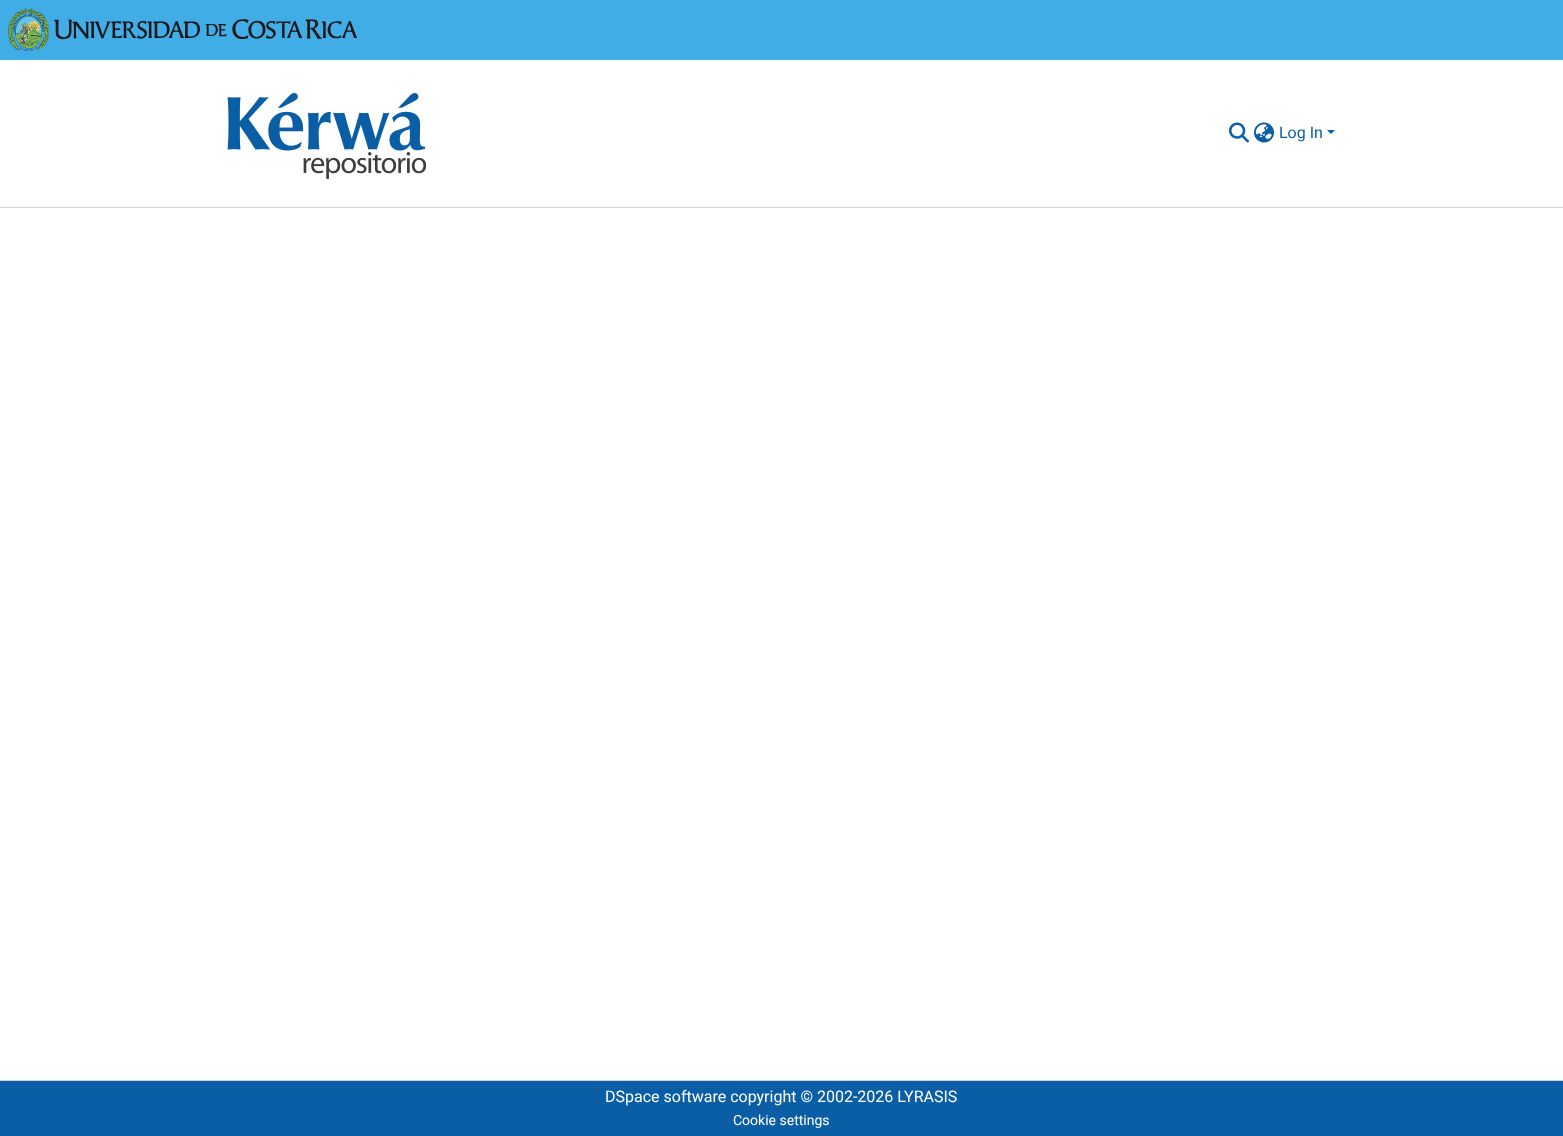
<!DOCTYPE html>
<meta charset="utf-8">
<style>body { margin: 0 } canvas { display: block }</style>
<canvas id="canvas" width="1563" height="1136"></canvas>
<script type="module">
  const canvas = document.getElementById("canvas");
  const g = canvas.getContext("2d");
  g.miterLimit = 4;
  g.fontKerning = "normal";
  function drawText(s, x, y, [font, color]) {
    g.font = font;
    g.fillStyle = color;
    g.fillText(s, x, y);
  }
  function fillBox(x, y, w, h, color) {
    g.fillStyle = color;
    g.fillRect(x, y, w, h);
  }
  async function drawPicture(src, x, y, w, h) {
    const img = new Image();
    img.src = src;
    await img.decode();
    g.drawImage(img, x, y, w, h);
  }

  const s1 = ["16px Roboto", "#0A5EA5"];
  const s2 = ["16px Roboto", "#FFFFFF"];
  const s3 = ["14px Roboto", "#FFFFFF"];

  fillBox(0, 0, 1563, 1136, "#FFFFFF");
  fillBox(0, 207, 1563, 1, "#CED4DA");
  fillBox(0, 0, 1563, 60, "#41ADE7");
  await drawPicture("pic1.png", 8, 8, 350, 44);
  await drawPicture("pic2.png", 227, 93, 199, 86);
  await drawPicture("pic3.png", 1229, 122, 20, 21);
  await drawPicture("pic4.png", 1254, 122, 20, 21);
  drawText("Log In", 1279, 138, s1);
  g.beginPath();
  g.moveTo(1327, 130);
  g.lineTo(1335, 130);
  g.lineTo(1331, 134);
  g.closePath();
  g.fill();
  fillBox(0, 1081, 1563, 55, "#0A5EA5");
  fillBox(0, 1080, 1563, 1, "#CED4DA");
  drawText("DSpace software copyright © 2002-2026 LYRASIS", 605, 1102, s2);
  drawText("Cookie settings", 733, 1125, s3);
</script>
